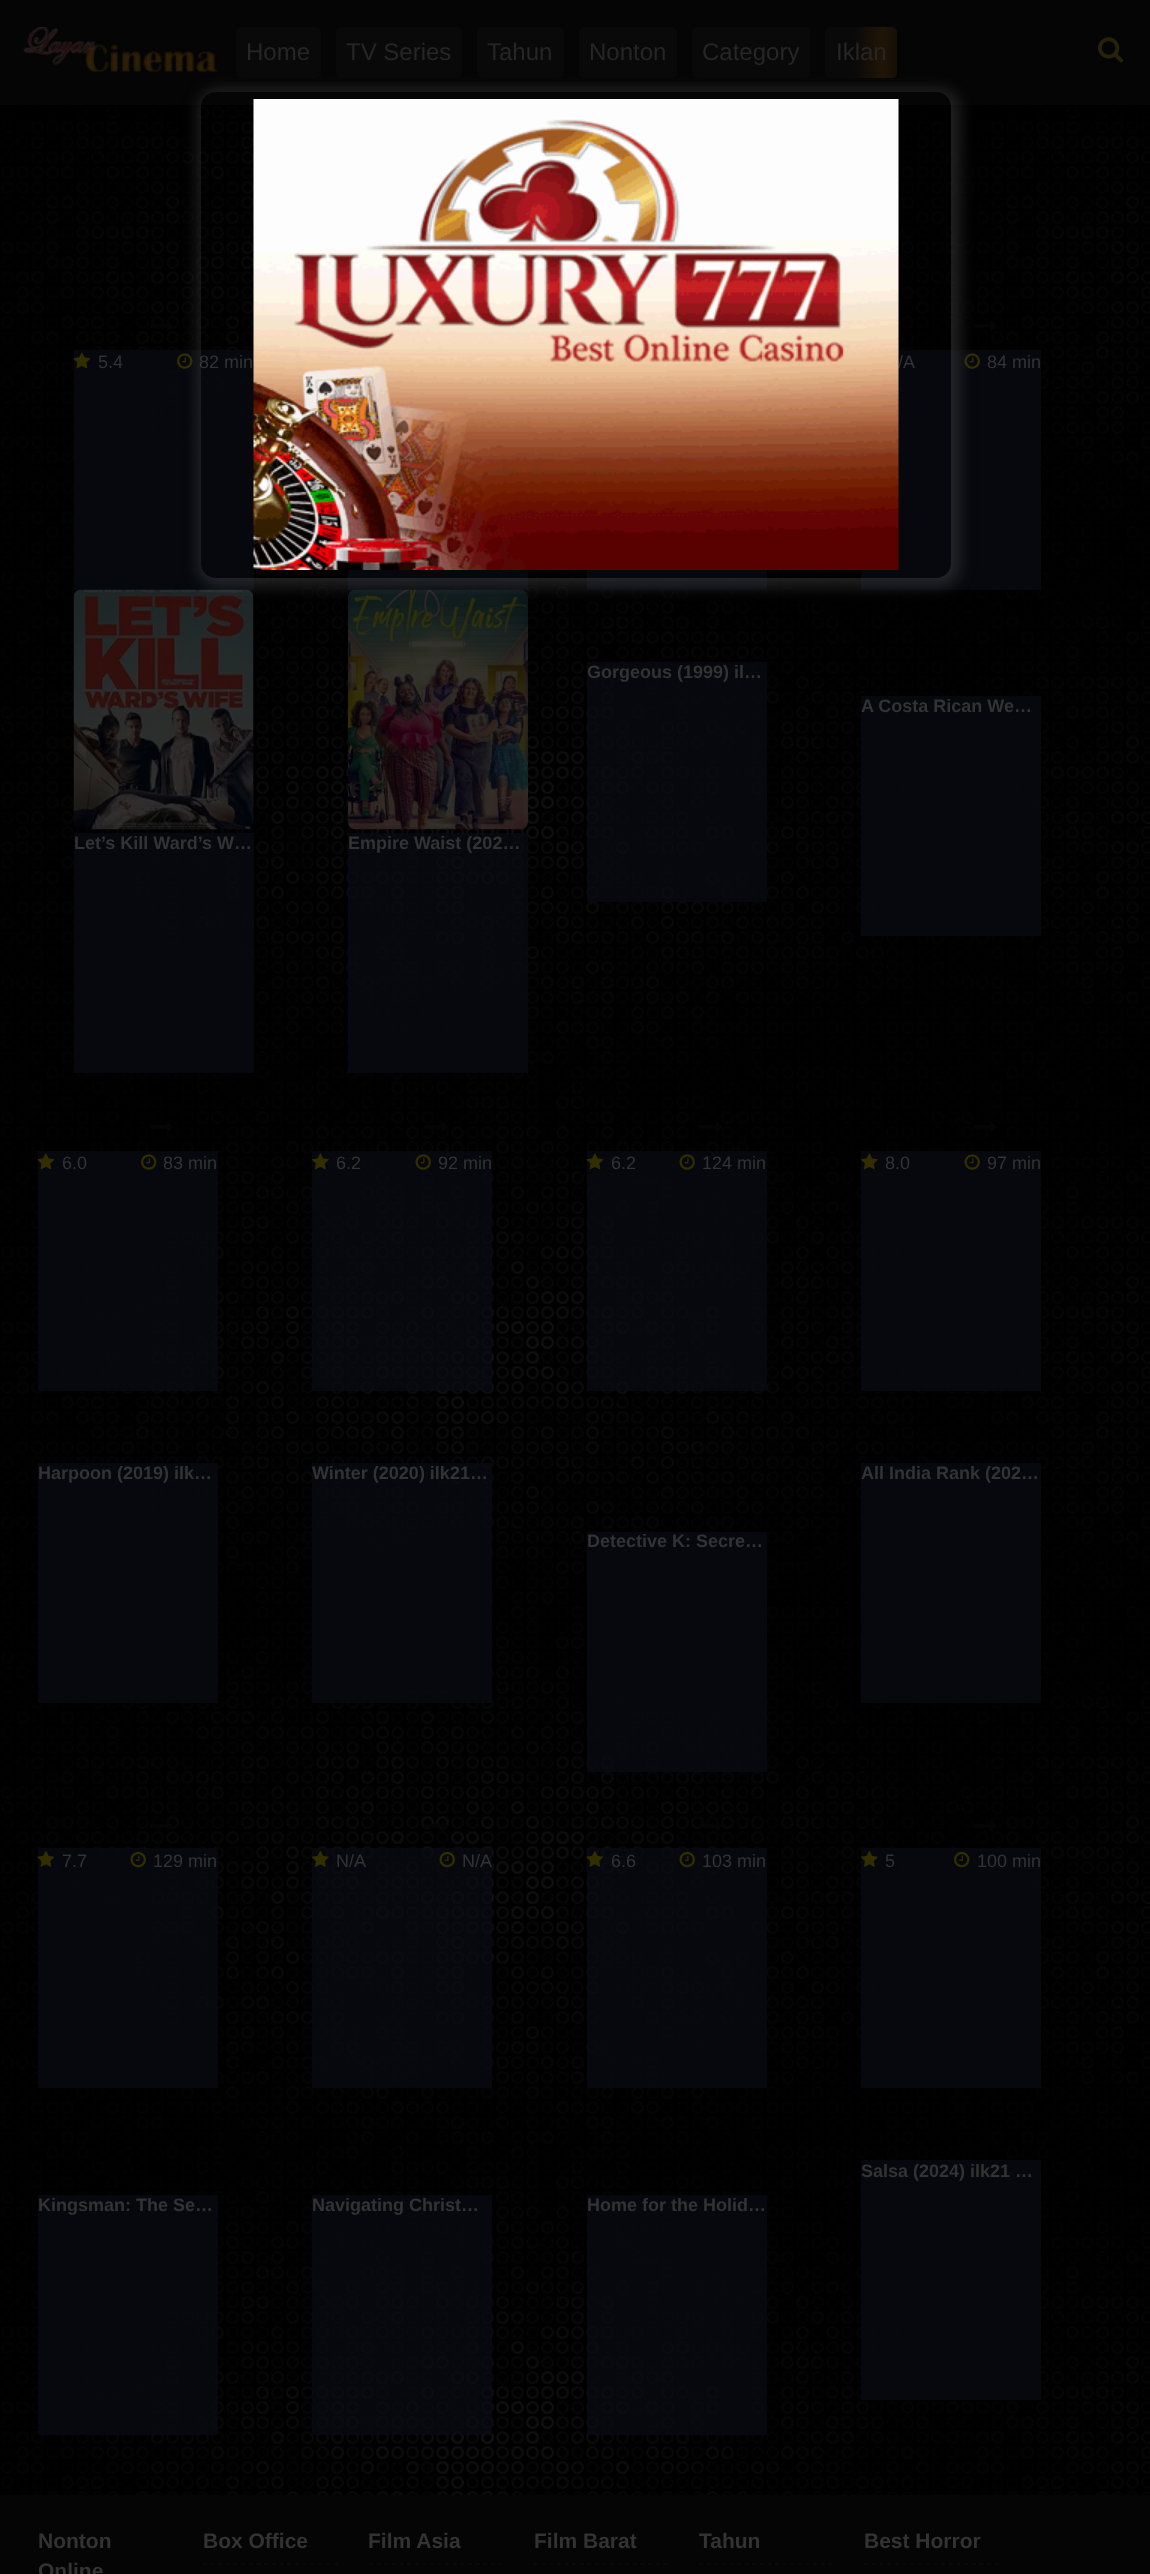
<!DOCTYPE html>
<meta charset="utf-8">
<style>body { margin: 0 } canvas { display: block }</style>
<canvas id="canvas" width="1150" height="2574"></canvas>
<script type="module">
  const canvas = document.getElementById("canvas");
  const g = canvas.getContext("2d");
  g.miterLimit = 4;
  g.fontKerning = "normal";
  function drawText(s, x, y, [font, color]) {
    g.font = font;
    g.fillStyle = color;
    g.fillText(s, x, y);
  }
  function fillBox(x, y, w, h, color) {
    g.fillStyle = color;
    g.fillRect(x, y, w, h);
  }
  function fillRounded(x, y, w, h, r, color) {
    g.fillStyle = color;
    g.beginPath();
    g.roundRect(x, y, w, h, r);
    g.fill();
  }
  async function drawPicture(src, x, y, w, h) {
    const img = new Image();
    img.src = src;
    await img.decode();
    g.drawImage(img, x, y, w, h);
  }
  let gradient;

  const s1 = ["24px Liberation Sans", "#262626"];
  const s2 = ["18px Liberation Sans", "#333333"];
  const s3 = ["bold 18px Liberation Sans", "#333333"];
  const s4 = ["bold 21px Liberation Sans", "#333333"];

  fillBox(0, 0, 1150, 2574, "#FFFFFF");
  await drawPicture("pic1.png", 0, 105, 1150, 2390);
  g.fillStyle = "rgba(0, 0, 0, 0.45)";
  g.filter = "blur(6px)";
  g.beginPath();
  g.rect(0, 3, 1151, 105);
  g.fill();
  g.filter = "none";
  fillBox(0, 0, 1150, 105, "#050505");
  await drawPicture("pic2.png", 23, 27, 195, 45);
  fillRounded(236, 27, 85, 51, 5, "#090909");
  drawText("Home", 246, 60, s1);
  fillRounded(336, 27, 126, 51, 5, "#090909");
  drawText("TV Series", 346, 60, s1);
  fillRounded(477, 27, 87, 51, 5, "#090909");
  drawText("Tahun", 487, 60, s1);
  fillRounded(579, 27, 98, 51, 5, "#090909");
  drawText("Nonton", 589, 60, s1);
  fillRounded(692, 27, 118, 51, 5, "#090909");
  drawText("Category", 702, 60, s1);
  gradient = g.createLinearGradient(969, 53, 825, 53);
  gradient.addColorStop(0.2, "#090909");
  gradient.addColorStop(0.4, "#090909");
  gradient.addColorStop(0.6, "#211506");
  gradient.addColorStop(0.8, "#090909");
  g.fillStyle = gradient;
  g.beginPath();
  g.roundRect(825, 27, 72, 51, 5);
  g.fill();
  drawText("Iklan", 836, 60, s1);
  await drawPicture("pic3.png", 1098, 37, 25, 26);
  await drawPicture("pic4.png", 468, 264, 20, 9);
  await drawPicture("pic5.png", 150, 321, 23, 10);
  fillBox(74, 350, 180, 240, "rgba(8, 12, 18, 0.7)");
  await drawPicture("pic6.png", 73, 352, 18, 17);
  drawText("5.4", 98, 368, s2);
  await drawPicture("pic7.png", 177, 353, 16, 16);
  drawText("82 min", 199, 368, s2);
  await drawPicture("pic8.png", 73, 589, 181, 241);
  fillBox(74, 833, 180, 240, "rgba(8, 12, 18, 0.7)");
  drawText("Let’s Kill Ward’s W…", 74, 849, s3);
  await drawPicture("pic9.png", 699, 321, 23, 10);
  fillBox(587, 350, 180, 240, "rgba(8, 12, 18, 0.7)");
  await drawPicture("pic10.png", 586, 352, 18, 17);
  await drawPicture("pic11.png", 679, 353, 16, 16);
  fillBox(587, 662, 180, 240, "rgba(8, 12, 18, 0.7)");
  drawText("Gorgeous (1999) il…", 587, 678, s3);
  await drawPicture("pic12.png", 973, 321, 24, 10);
  fillBox(861, 350, 180, 240, "rgba(8, 12, 18, 0.7)");
  await drawPicture("pic13.png", 861, 352, 17, 17);
  drawText("/A", 898, 368, s2);
  await drawPicture("pic14.png", 964, 353, 16, 16);
  drawText("84 min", 987, 368, s2);
  fillBox(861, 696, 180, 240, "rgba(8, 12, 18, 0.7)");
  drawText("A Costa Rican We…", 861, 712, s3);
  await drawPicture("pic15.png", 424, 321, 24, 10);
  fillBox(348, 350, 180, 240, "rgba(8, 12, 18, 0.7)");
  await drawPicture("pic16.png", 348, 352, 17, 17);
  await drawPicture("pic17.png", 451, 353, 16, 16);
  await drawPicture("pic18.png", 348, 589, 180, 241);
  fillBox(348, 833, 180, 240, "rgba(8, 12, 18, 0.7)");
  drawText("Empire Waist (202…", 348, 849, s3);
  await drawPicture("pic19.png", 150, 1122, 23, 10);
  fillBox(38, 1151, 180, 240, "rgba(8, 12, 18, 0.7)");
  await drawPicture("pic20.png", 37, 1153, 18, 17);
  drawText("6.0", 62, 1169, s2);
  await drawPicture("pic21.png", 141, 1154, 16, 16);
  drawText("83 min", 163, 1169, s2);
  fillBox(38, 1463, 180, 240, "rgba(8, 12, 18, 0.7)");
  drawText("Harpoon (2019) ilk…", 38, 1479, s3);
  await drawPicture("pic22.png", 424, 1122, 24, 10);
  fillBox(312, 1151, 180, 240, "rgba(8, 12, 18, 0.7)");
  await drawPicture("pic23.png", 312, 1153, 17, 17);
  drawText("6.2", 336, 1169, s2);
  await drawPicture("pic24.png", 415, 1154, 16, 16);
  drawText("92 min", 438, 1169, s2);
  fillBox(312, 1463, 180, 240, "rgba(8, 12, 18, 0.7)");
  drawText("Winter (2020) ilk21…", 312, 1479, s3);
  await drawPicture("pic25.png", 699, 1122, 23, 10);
  fillBox(587, 1151, 180, 240, "rgba(8, 12, 18, 0.7)");
  await drawPicture("pic26.png", 586, 1153, 18, 17);
  drawText("6.2", 611, 1169, s2);
  await drawPicture("pic27.png", 679, 1154, 16, 16);
  drawText("124 min", 702, 1169, s2);
  fillBox(587, 1532, 180, 240, "rgba(8, 12, 18, 0.7)");
  drawText("Detective K: Secre…", 587, 1547, s3);
  await drawPicture("pic28.png", 973, 1122, 24, 10);
  fillBox(861, 1151, 180, 240, "rgba(8, 12, 18, 0.7)");
  await drawPicture("pic29.png", 861, 1153, 17, 17);
  drawText("8.0", 885, 1169, s2);
  await drawPicture("pic30.png", 964, 1154, 16, 16);
  drawText("97 min", 987, 1169, s2);
  fillBox(861, 1463, 180, 240, "rgba(8, 12, 18, 0.7)");
  drawText("All India Rank (202…", 861, 1479, s3);
  await drawPicture("pic31.png", 150, 1821, 23, 10);
  fillBox(38, 1848, 180, 240, "rgba(8, 12, 18, 0.7)");
  await drawPicture("pic32.png", 37, 1850, 18, 17);
  drawText("7.7", 62, 1867, s2);
  await drawPicture("pic33.png", 130, 1851, 16, 17);
  drawText("129 min", 153, 1867, s2);
  fillBox(38, 2195, 180, 240, "rgba(8, 12, 18, 0.7)");
  drawText("Kingsman: The Se…", 38, 2211, s3);
  await drawPicture("pic34.png", 424, 1821, 24, 10);
  fillBox(312, 1848, 180, 240, "rgba(8, 12, 18, 0.7)");
  await drawPicture("pic35.png", 312, 1850, 17, 17);
  drawText("N/A", 336, 1867, s2);
  await drawPicture("pic36.png", 439, 1851, 16, 17);
  drawText("N/A", 462, 1867, s2);
  fillBox(312, 2195, 180, 240, "rgba(8, 12, 18, 0.7)");
  drawText("Navigating Christ…", 312, 2211, s3);
  await drawPicture("pic37.png", 699, 1821, 23, 10);
  fillBox(587, 1848, 180, 240, "rgba(8, 12, 18, 0.7)");
  await drawPicture("pic38.png", 586, 1850, 18, 17);
  drawText("6.6", 611, 1867, s2);
  await drawPicture("pic39.png", 679, 1851, 16, 17);
  drawText("103 min", 702, 1867, s2);
  fillBox(587, 2195, 180, 240, "rgba(8, 12, 18, 0.7)");
  drawText("Home for the Holid…", 587, 2211, s3);
  await drawPicture("pic40.png", 973, 1821, 24, 10);
  fillBox(861, 1848, 180, 240, "rgba(8, 12, 18, 0.7)");
  await drawPicture("pic41.png", 861, 1850, 17, 17);
  drawText("5", 885, 1867, s2);
  await drawPicture("pic42.png", 954, 1851, 16, 17);
  drawText("100 min", 977, 1867, s2);
  fillBox(861, 2160, 180, 240, "rgba(8, 12, 18, 0.7)");
  drawText("Salsa (2024) ilk21 …", 861, 2177, s3);
  fillBox(0, 2495, 1150, 79, "#050505");
  g.save();
  g.beginPath();
  g.moveTo(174, 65);
  g.lineTo(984, 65);
  g.lineTo(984, 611);
  g.lineTo(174, 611);
  g.closePath();
  g.moveTo(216, 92);
  g.lineTo(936, 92);
  g.bezierCurveTo(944.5, 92, 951, 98.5, 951, 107);
  g.lineTo(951, 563);
  g.bezierCurveTo(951, 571.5, 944.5, 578, 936, 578);
  g.lineTo(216, 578);
  g.bezierCurveTo(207.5, 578, 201, 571.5, 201, 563);
  g.lineTo(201, 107);
  g.bezierCurveTo(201, 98.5, 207.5, 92, 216, 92);
  g.closePath();
  g.clip("evenodd");
  g.fillStyle = "rgba(86, 85, 85, 0.39)";
  g.filter = "blur(7.5px)";
  g.beginPath();
  g.roundRect(198, 89, 762, 498, 21);
  g.fill();
  g.filter = "none";
  g.restore();
  await drawPicture("pic43.png", 253, 99, 646, 471);
  drawText("Nonton", 38, 2548, s4);
  drawText("Online", 38, 2578, s4);
  g.beginPath();
  g.moveTo(202.5, 2564);
  g.lineTo(337.5, 2564);
  g.strokeStyle = "#0C0C0C";
  g.lineWidth = 1.5;
  g.setLineDash([4.5, 3.18]);
  g.stroke();
  drawText("Box Office", 203, 2548, s4);
  g.beginPath();
  g.moveTo(369, 2564);
  g.lineTo(502.5, 2564);
  g.setLineDash([4.5, 3.09]);
  g.stroke();
  drawText("Film Asia", 368, 2548, s4);
  g.beginPath();
  g.moveTo(534, 2564);
  g.lineTo(667.5, 2564);
  g.stroke();
  drawText("Film Barat", 534, 2548, s4);
  g.beginPath();
  g.moveTo(699, 2564);
  g.lineTo(832.5, 2564);
  g.stroke();
  drawText("Tahun", 699, 2548, s4);
  g.beginPath();
  g.moveTo(864, 2564);
  g.lineTo(999, 2564);
  g.setLineDash([4.5, 3.18]);
  g.stroke();
  drawText("Best Horror", 864, 2548, s4);
</script>
